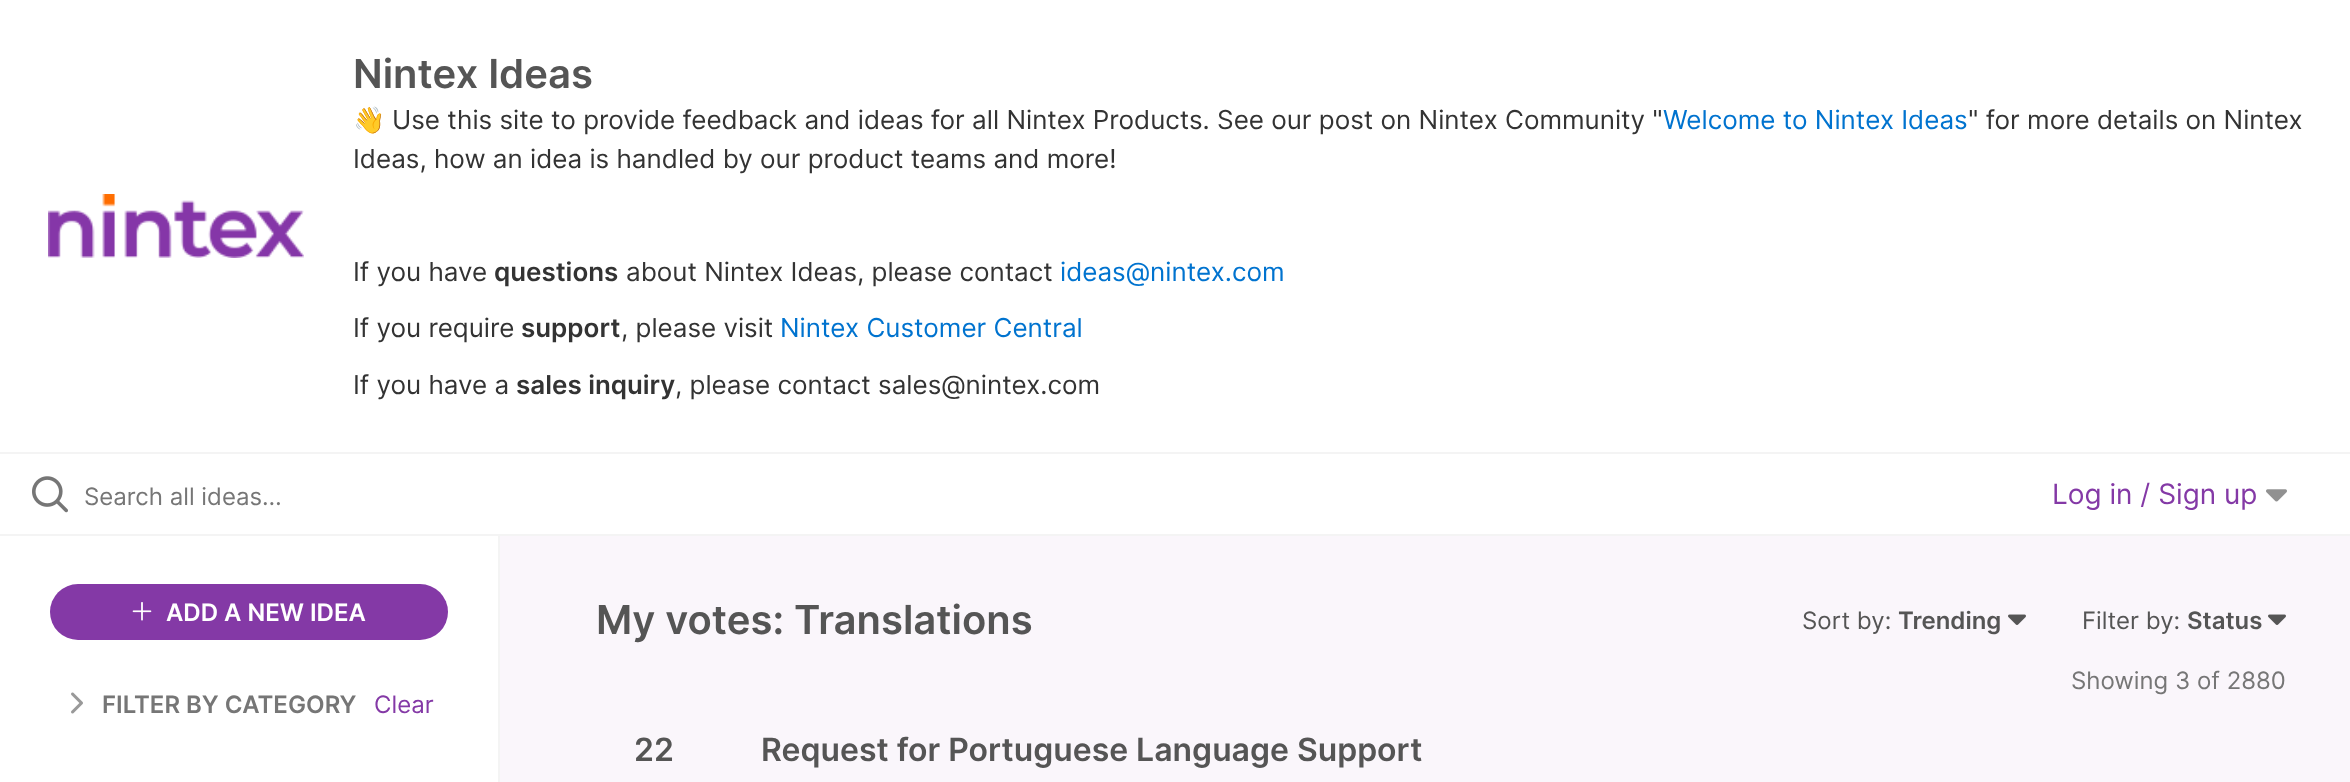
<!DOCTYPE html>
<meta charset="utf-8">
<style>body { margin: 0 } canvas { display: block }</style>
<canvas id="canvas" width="2350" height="782"></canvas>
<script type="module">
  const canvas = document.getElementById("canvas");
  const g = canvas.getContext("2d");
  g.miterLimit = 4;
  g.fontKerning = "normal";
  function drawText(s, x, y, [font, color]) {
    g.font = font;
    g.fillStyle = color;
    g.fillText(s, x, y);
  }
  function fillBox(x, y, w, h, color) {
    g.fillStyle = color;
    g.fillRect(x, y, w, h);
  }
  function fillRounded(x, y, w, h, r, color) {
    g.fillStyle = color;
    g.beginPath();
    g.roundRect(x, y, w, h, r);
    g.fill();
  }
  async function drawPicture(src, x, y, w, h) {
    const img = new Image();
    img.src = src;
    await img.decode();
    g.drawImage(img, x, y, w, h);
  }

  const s1 = ["600 40px Inter", "#555555"];
  const s2 = ["26px Noto Color Emoji", "#000000"];
  const s3 = ["26px Inter", "#333333"];
  const s4 = ["26px Inter", "#0073CF"];
  const s5 = ["600 26px Inter", "#333333"];
  const s6 = ["24px Inter", "#767676"];
  const s7 = ["28px Inter", "#8439A6"];
  const s8 = ["600 24px Inter", "#FFFFFF"];
  const s9 = ["600 24px Inter", "#767676"];
  const s10 = ["24px Inter", "#8439A6"];
  const s11 = ["24px Inter", "#555555"];
  const s12 = ["600 24px Inter", "#555555"];
  const s13 = ["600 32px Inter", "#555555"];

  fillBox(0, 0, 2350, 782, "#FAF6FB");
  fillBox(0, 0, 2350, 452, "#FFFFFF");
  fillBox(0, 452, 2350, 2, "#F4F4F4");
  await drawPicture("pic1.png", 48, 194, 256, 64);
  drawText("Nintex Ideas", 353, 88, s1);
  drawText("👋", 353, 129, s2);
  drawText("Use this site to provide feedback and ideas for all Nintex Products. See our post on Nintex Community \"", 392, 129, s3);
  drawText("Welcome to Nintex Ideas", 1663, 129, s4);
  drawText("\" for more details on Nintex", 1968, 129, s3);
  drawText("Ideas, how an idea is handled by our product teams and more!", 353, 168, s3);
  drawText("If you have", 353, 281, s3);
  drawText("questions", 494, 281, s5);
  drawText("about Nintex Ideas, please contact", 626, 281, s3);
  drawText("ideas@nintex.com", 1060, 281, s4);
  drawText("If you require", 353, 337, s3);
  drawText("support", 521, 337, s5);
  drawText(", please visit", 621, 337, s3);
  drawText("Nintex Customer Central", 780, 337, s4);
  drawText("If you have a", 353, 394, s3);
  drawText("sales inquiry", 516, 394, s5);
  drawText(", please contact sales@nintex.com", 675, 394, s3);
  fillBox(0, 454, 2350, 80, "#FFFFFF");
  fillBox(0, 534, 2350, 2, "#F4F4F4");
  await drawPicture("pic2.png", 32, 476, 36, 37);
  drawText("Search all ideas…", 84, 505, s6);
  drawText("Log in / Sign up", 2052, 504, s7);
  await drawPicture("pic3.png", 2266, 489, 21, 13);
  fillBox(0, 536, 498, 246, "#FFFFFF");
  fillBox(498, 536, 2, 246, "#F4F4F4");
  fillRounded(50, 584, 398, 56, 28, "#8439A6");
  await drawPicture("pic4.png", 132, 602, 20, 19);
  drawText("ADD A NEW IDEA", 166, 621, s8);
  await drawPicture("pic5.png", 71, 692, 12, 22);
  drawText("FILTER BY CATEGORY", 102, 713, s9);
  drawText("Clear", 374, 713, s10);
  drawText("My votes: Translations", 596, 634, s1);
  drawText("Sort by:", 1802, 629, s11);
  drawText("Trending", 1898, 629, s12);
  await drawPicture("pic6.png", 2008, 614, 18, 11);
  drawText("Filter by:", 2082, 629, s11);
  drawText("Status", 2187, 629, s12);
  await drawPicture("pic6.png", 2268, 614, 18, 11);
  drawText("Showing 3 of 2880", 2071, 689, s6);
  drawText("22", 634, 761, s13);
  drawText("Request for Portuguese Language Support", 761, 761, s13);
</script>
